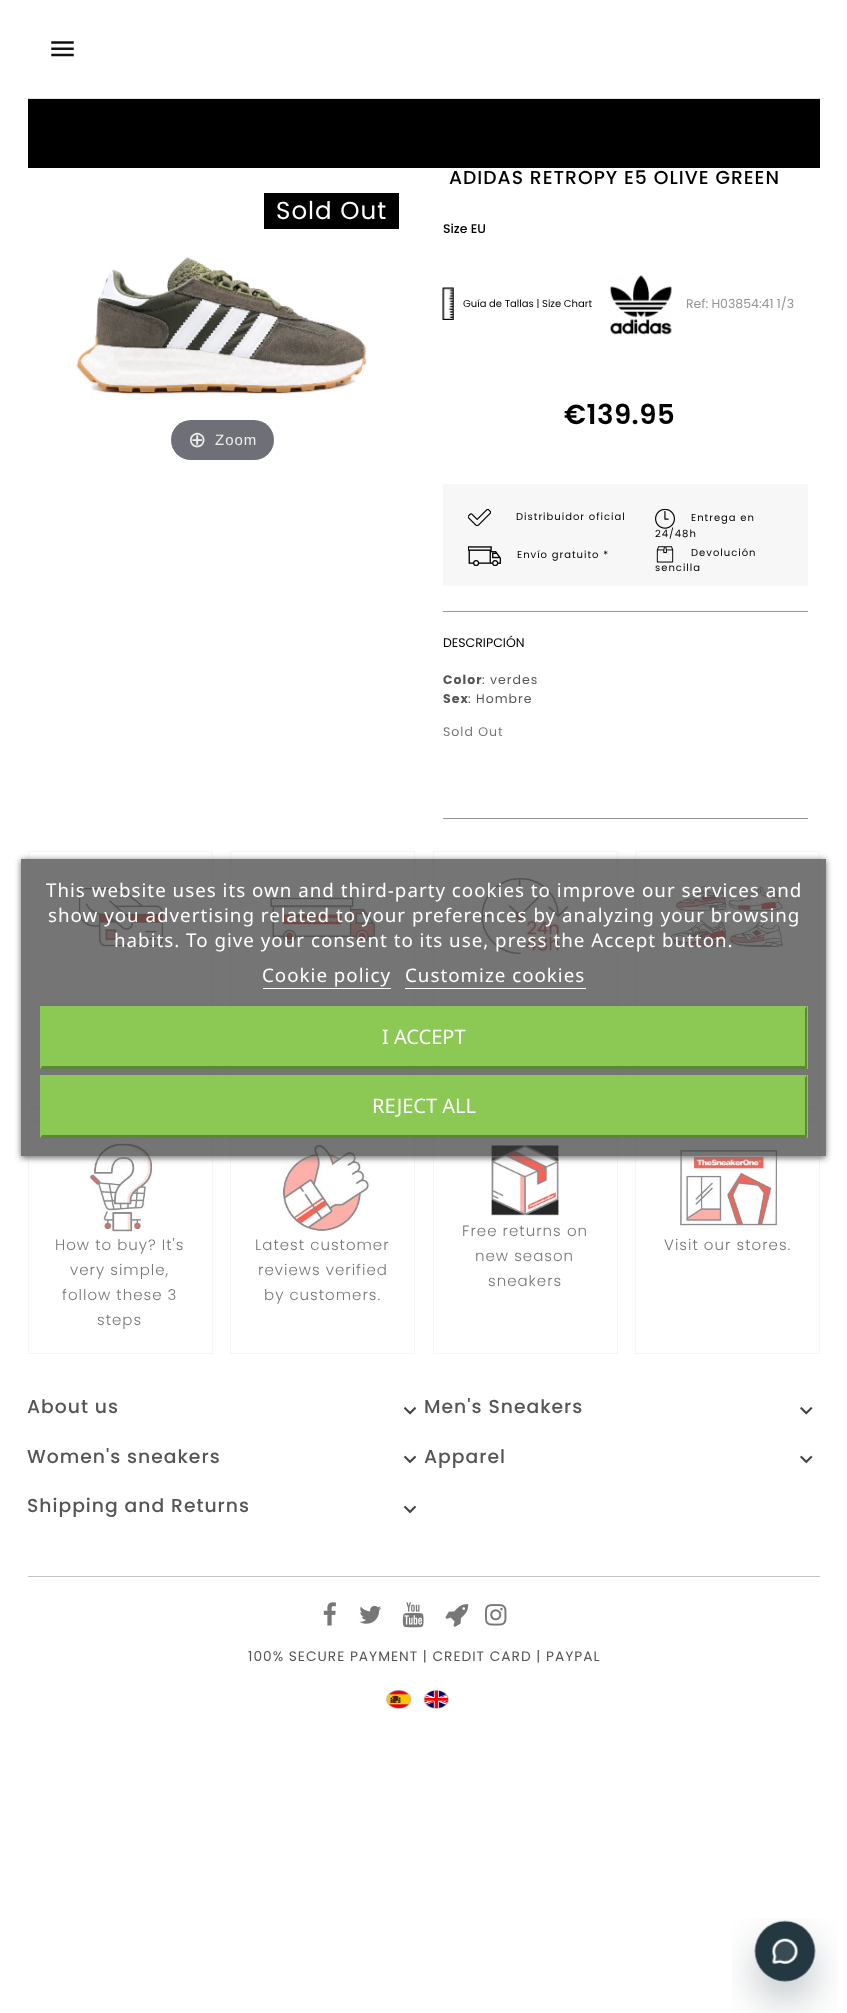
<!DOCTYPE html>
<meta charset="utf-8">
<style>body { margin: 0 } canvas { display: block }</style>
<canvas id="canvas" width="847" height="2013"></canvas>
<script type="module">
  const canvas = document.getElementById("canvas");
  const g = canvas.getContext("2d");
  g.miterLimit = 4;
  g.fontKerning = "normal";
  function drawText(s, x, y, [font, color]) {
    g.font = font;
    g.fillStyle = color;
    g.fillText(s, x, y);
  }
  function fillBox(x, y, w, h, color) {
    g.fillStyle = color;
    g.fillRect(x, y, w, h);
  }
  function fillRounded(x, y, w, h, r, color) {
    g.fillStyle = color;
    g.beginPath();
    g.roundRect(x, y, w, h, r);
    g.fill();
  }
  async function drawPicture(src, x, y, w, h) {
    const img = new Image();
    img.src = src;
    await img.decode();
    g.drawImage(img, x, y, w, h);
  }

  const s1 = ["24.5px Poppins", "#FFFFFF"];
  const s2 = ["22px DejaVu Sans", "#EEEEEE"];
  const s3 = ["15px Liberation Sans", "#EEEEEE"];
  const s4 = ["500 18.75px Poppins", "#000000"];
  const s5 = ["500 12.5px Poppins", "#000000"];
  const s6 = ["10px Poppins", "#000000"];
  const s7 = ["12.5px Poppins", "#959595"];
  const s8 = ["600 27.5px Poppins", "#000000"];
  const s9 = ["12.5px Poppins", "#000000"];
  const s10 = ["bold 12.5px Poppins", "#555555"];
  const s11 = ["12.5px Poppins", "#555555"];
  const s12 = ["12.5px Poppins", "#777777"];
  const s13 = ["300 15px Poppins", "#777777"];
  const s14 = ["18.75px Noto Sans", "#FFFFFF"];
  const s15 = ["20px Noto Sans", "#FFFFFF"];
  const s16 = ["500 18.75px Poppins", "#555555"];
  const s17 = ["13.75px Poppins", "#555555"];

  fillBox(0, 0, 847, 2013, "#FFFFFF");
  fillBox(28, 98, 792, 1, "#E6E6E6");
  await drawPicture("pic1.png", 51, 41, 23, 16);
  fillBox(28, 99, 792, 69, "#000000");
  fillBox(264, 193, 135, 36, "#000000");
  g.letterSpacing = "1px";
  drawText("Sold Out", 276, 219, s1);
  await drawPicture("pic2.png", 75, 257, 292, 138);
  fillRounded(171, 420, 103, 40, 20, "#6F7077");
  drawText("⊕", 188, 447, s2);
  drawText("Zoom", 215, 445, s3);
  drawText("ADIDAS RETROPY E5 OLIVE GREEN", 449, 184, s4);
  g.letterSpacing = "0px";
  drawText("Size EU", 443, 233, s5);
  await drawPicture("pic3.png", 442, 287, 12, 33);
  drawText("Guía de Tallas | Size Chart", 463, 307, s6);
  await drawPicture("pic4.png", 609, 275, 63, 60);
  drawText("Ref: H03854:41 1/3", 686, 308, s7);
  g.letterSpacing = "0.5px";
  drawText("€139.95", 564, 424, s8);
  fillBox(443, 484, 365, 102, "#F7F7F7");
  await drawPicture("pic5.png", 468, 509, 23, 17);
  g.letterSpacing = "1px";
  drawText("Distribuidor oficial", 516, 520, s6);
  await drawPicture("pic6.png", 468, 546, 33, 20);
  drawText("Envío gratuito *", 517, 558, s6);
  await drawPicture("pic7.png", 655, 509, 20, 20);
  drawText("Entrega en", 691, 521, s6);
  drawText("24/48h", 655, 537, s6);
  await drawPicture("pic8.png", 656, 546, 18, 17);
  drawText("Devolución", 691, 556, s6);
  drawText("sencilla", 655, 571, s6);
  fillBox(443, 611, 365, 1, "#959595");
  fillBox(443, 818, 365, 1, "#959595");
  g.letterSpacing = "0px";
  drawText("DESCRIPCIÓN", 443, 647, s9);
  g.letterSpacing = "1px";
  drawText("Color", 443, 684, s10);
  drawText(": verdes", 482, 684, s11);
  drawText("Sex", 443, 703, s10);
  drawText(": Hombre", 468, 703, s11);
  drawText("Sold Out", 443, 736, s12);
  g.strokeStyle = "#F5F5F5";
  g.strokeRect(28.5, 851.5, 184, 257);
  await drawPicture("pic9.png", 77, 887, 92, 62);
  g.strokeRect(230.5, 851.5, 184, 257);
  await drawPicture("pic10.png", 270, 897, 110, 48);
  g.strokeRect(433.5, 851.5, 184, 257);
  await drawPicture("pic11.png", 480, 877, 89, 82);
  g.strokeRect(635.5, 851.5, 184, 257);
  await drawPicture("pic12.png", 670, 882, 115, 67);
  g.strokeRect(28.5, 1121.5, 184, 232);
  await drawPicture("pic13.png", 87, 1143, 70, 89);
  drawText("How to buy? It's", 55, 1250, s13);
  drawText("very simple,", 70, 1275, s13);
  drawText("follow these 3", 62, 1300, s13);
  drawText("steps", 97, 1325, s13);
  g.strokeRect(230.5, 1121.5, 184, 232);
  await drawPicture("pic14.png", 281, 1143, 91, 90);
  drawText("Latest customer", 255, 1250, s13);
  drawText("reviews verified", 258, 1275, s13);
  drawText("by customers.", 264, 1300, s13);
  g.strokeRect(433.5, 1121.5, 184, 232);
  await drawPicture("pic15.png", 491, 1145, 68, 72);
  drawText("Free returns on", 462, 1236, s13);
  drawText("new season", 475, 1261, s13);
  drawText("sneakers", 488, 1286, s13);
  g.strokeRect(635.5, 1121.5, 184, 232);
  await drawPicture("pic16.png", 679, 1147, 100, 82);
  drawText("Visit our stores.", 664, 1250, s13);
  g.save();
  g.beginPath();
  g.moveTo(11, 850);
  g.lineTo(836, 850);
  g.lineTo(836, 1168);
  g.lineTo(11, 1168);
  g.closePath();
  g.moveTo(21, 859);
  g.lineTo(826, 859);
  g.lineTo(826, 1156);
  g.lineTo(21, 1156);
  g.closePath();
  g.clip("evenodd");
  g.fillStyle = "#707070";
  g.filter = "blur(3px)";
  g.beginPath();
  g.rect(21, 860, 805, 298);
  g.fill();
  g.filter = "none";
  g.restore();
  fillBox(21, 859, 805, 297, "rgba(59, 59, 59, 0.7)");
  drawText("This website uses its own and third-party cookies to improve our services and", 46, 897, s14);
  drawText("show you advertising related to your preferences by analyzing your browsing", 48, 922, s14);
  drawText("habits. To give your consent to its use, press the Accept button.", 114, 947, s14);
  drawText("Cookie policy", 262, 982, s14);
  fillBox(263, 988, 128, 1, "#FFFFFF");
  drawText("Customize cookies", 405, 982, s14);
  fillBox(405, 988, 181, 1, "#FFFFFF");
  fillBox(40, 1006, 768, 63, "#8BC954");
  g.fillStyle = "#5D8638";
  g.beginPath();
  g.moveTo(807, 1006);
  g.lineTo(807, 1069);
  g.lineTo(805, 1066);
  g.lineTo(805, 1009);
  g.closePath();
  g.fill();
  g.beginPath();
  g.moveTo(807, 1069);
  g.lineTo(40, 1069);
  g.lineTo(42, 1066);
  g.lineTo(805, 1066);
  g.closePath();
  g.fill();
  g.fillStyle = "#8BC954";
  g.beginPath();
  g.moveTo(40, 1069);
  g.lineTo(40, 1006);
  g.lineTo(42, 1009);
  g.lineTo(42, 1066);
  g.closePath();
  g.fill();
  g.letterSpacing = "0px";
  drawText("I ACCEPT", 382, 1044, s15);
  fillBox(40, 1075, 768, 63, "#8BC954");
  g.fillStyle = "#5D8638";
  g.beginPath();
  g.moveTo(807, 1075);
  g.lineTo(807, 1138);
  g.lineTo(805, 1135);
  g.lineTo(805, 1078);
  g.closePath();
  g.fill();
  g.beginPath();
  g.moveTo(807, 1138);
  g.lineTo(40, 1138);
  g.lineTo(42, 1135);
  g.lineTo(805, 1135);
  g.closePath();
  g.fill();
  g.fillStyle = "#8BC954";
  g.beginPath();
  g.moveTo(40, 1138);
  g.lineTo(40, 1075);
  g.lineTo(42, 1078);
  g.lineTo(42, 1135);
  g.closePath();
  g.fill();
  drawText("REJECT ALL", 372, 1113, s15);
  g.letterSpacing = "1px";
  drawText("About us", 27, 1413, s16);
  await drawPicture("pic17.png", 403, 1407, 14, 8);
  drawText("Men's Sneakers", 424, 1413, s16);
  await drawPicture("pic18.png", 800, 1407, 13, 8);
  drawText("Women's sneakers", 27, 1463, s16);
  await drawPicture("pic19.png", 403, 1455, 14, 9);
  drawText("Apparel", 424, 1463, s16);
  await drawPicture("pic20.png", 800, 1455, 13, 9);
  drawText("Shipping and Returns", 27, 1512, s16);
  await drawPicture("pic19.png", 403, 1505, 14, 9);
  fillBox(28, 1576, 792, 1, "#C3C3C3");
  await drawPicture("pic21.png", 323, 1602, 13, 24);
  await drawPicture("pic22.png", 359, 1605, 23, 19);
  await drawPicture("pic23.png", 402, 1602, 22, 26);
  await drawPicture("pic24.png", 445, 1604, 24, 23);
  await drawPicture("pic25.png", 485, 1604, 22, 22);
  drawText("100% SECURE PAYMENT | CREDIT CARD | PAYPAL", 248, 1661, s17);
  await drawPicture("pic26.png", 386, 1690, 26, 19);
  await drawPicture("pic27.png", 423, 1690, 26, 19);
  await drawPicture("pic28.png", 732, 1918, 106, 95);
</script>
